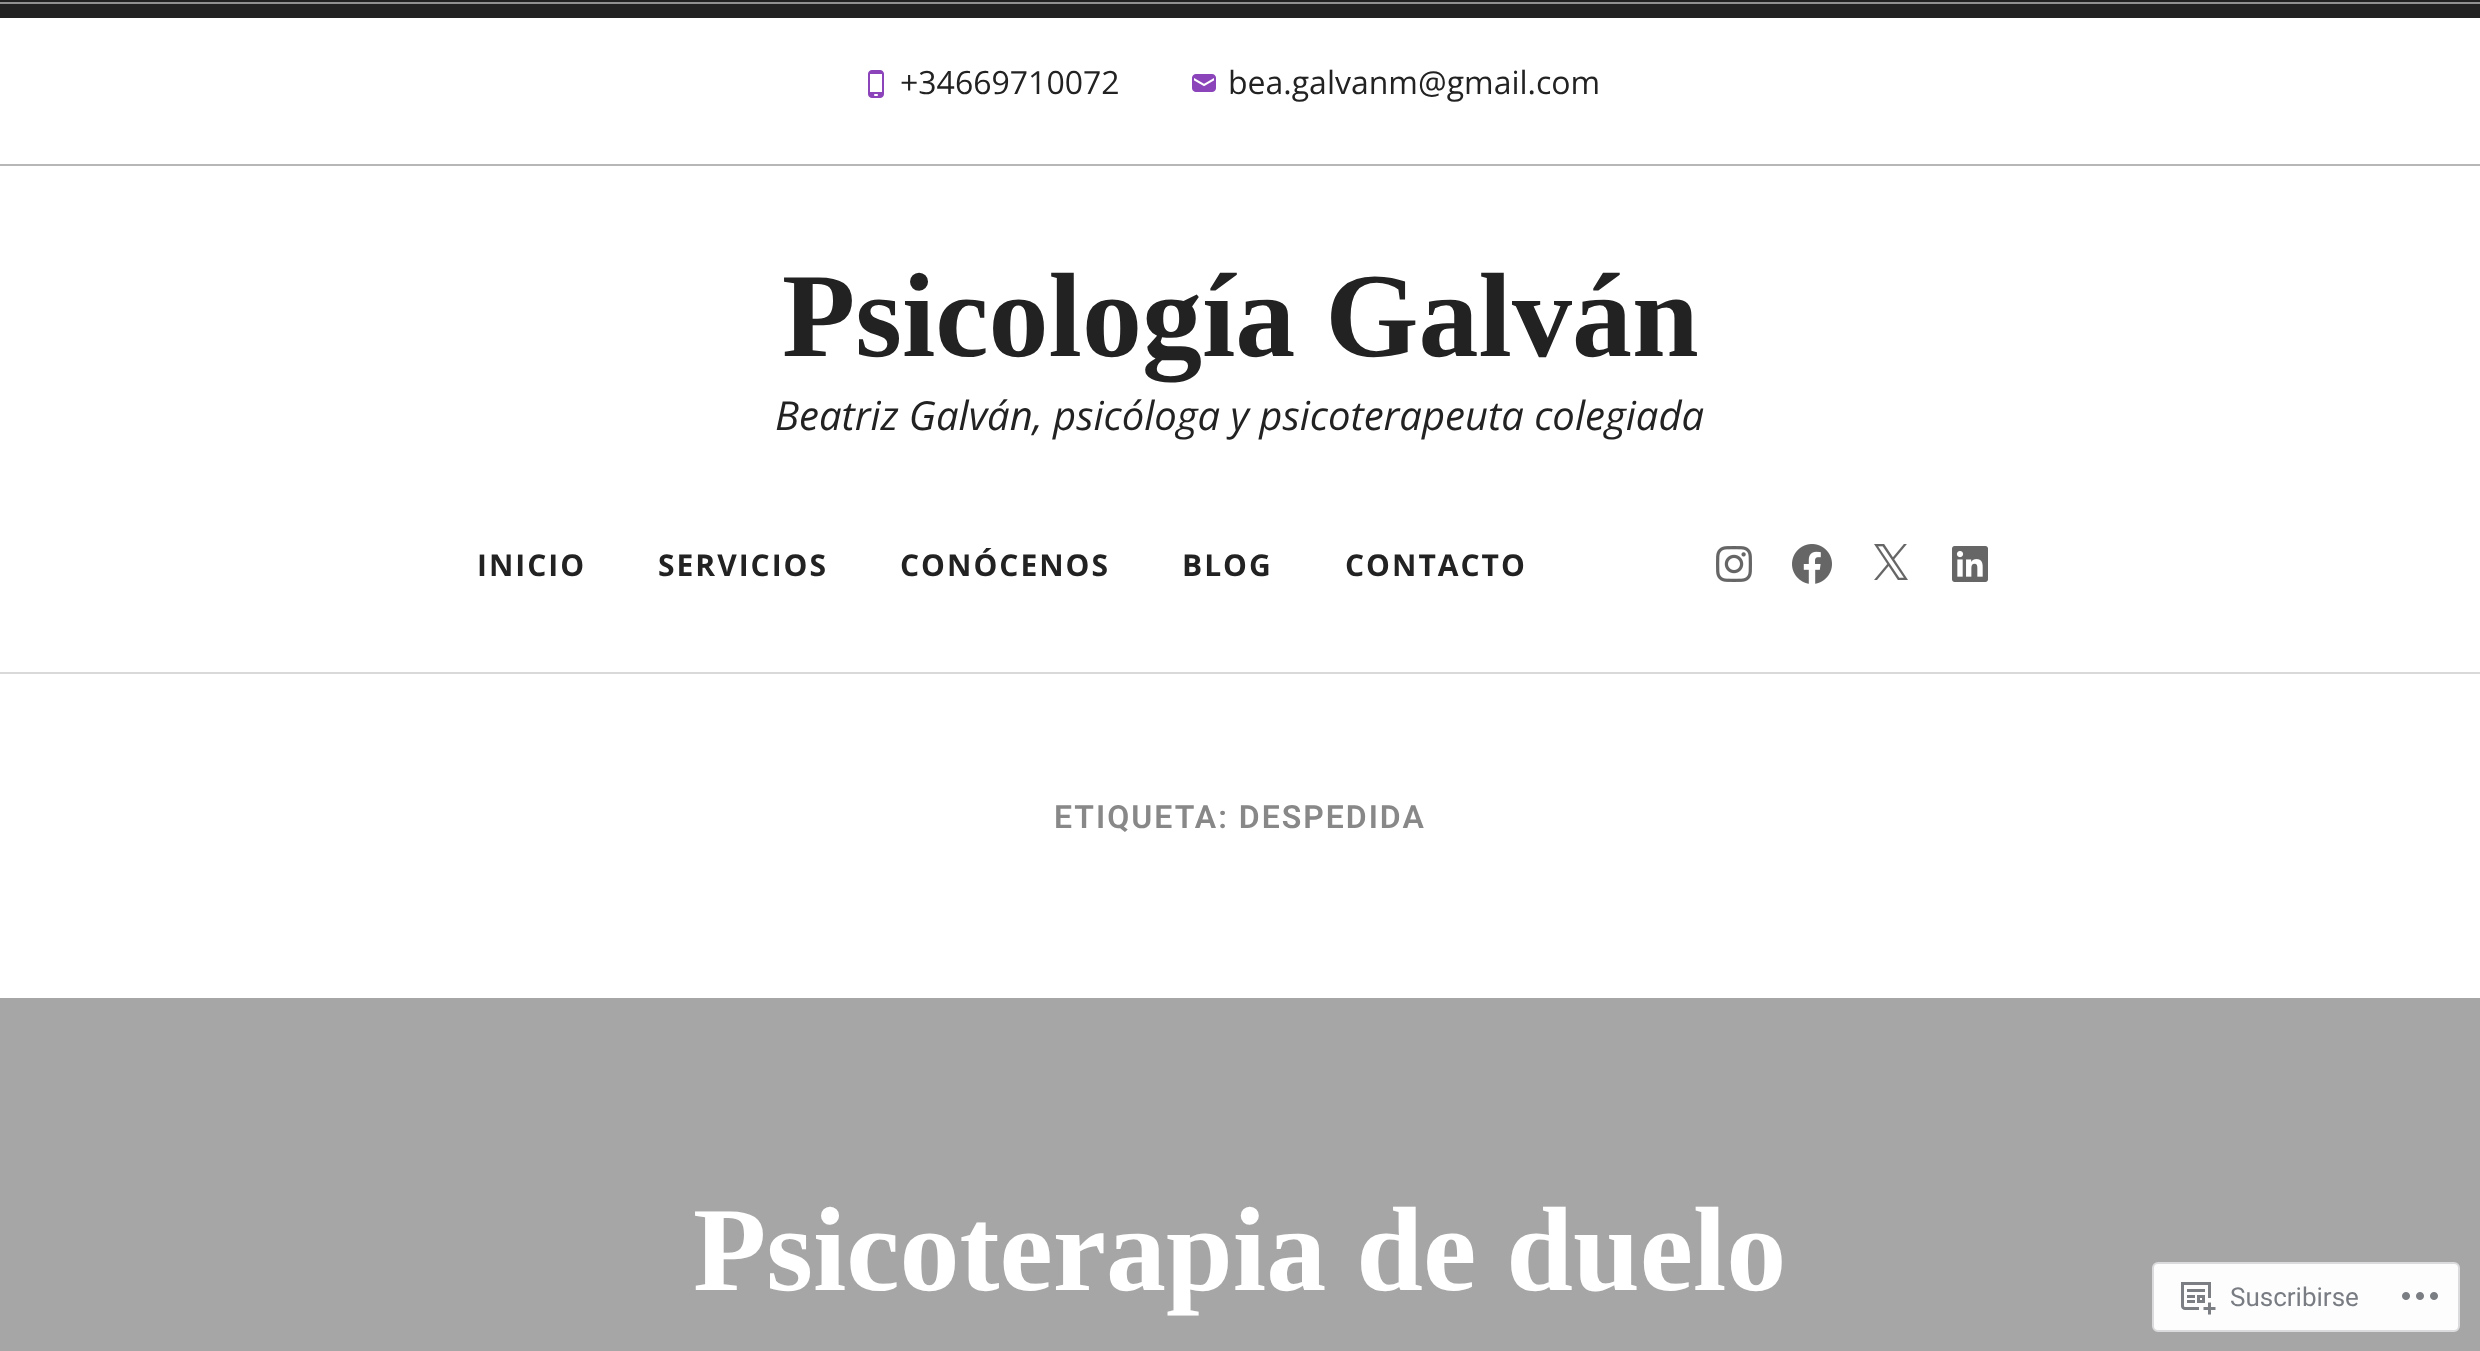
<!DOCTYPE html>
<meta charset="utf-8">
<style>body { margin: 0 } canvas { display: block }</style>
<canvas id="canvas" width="2480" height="1351"></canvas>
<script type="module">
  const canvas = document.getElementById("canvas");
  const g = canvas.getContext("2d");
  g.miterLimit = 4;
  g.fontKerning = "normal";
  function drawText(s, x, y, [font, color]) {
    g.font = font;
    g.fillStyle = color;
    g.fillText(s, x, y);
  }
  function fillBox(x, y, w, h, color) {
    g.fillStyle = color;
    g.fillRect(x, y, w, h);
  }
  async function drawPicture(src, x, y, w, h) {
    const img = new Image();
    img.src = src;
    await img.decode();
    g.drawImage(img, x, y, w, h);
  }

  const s1 = ["32px Open Sans", "#222222"];
  const s2 = ["bold 120px Liberation Serif", "#222222"];
  const s3 = ["italic 40px Open Sans", "#222222"];
  const s4 = ["bold 30px Open Sans", "#222222"];
  const s5 = ["600 32px Roboto", "#888888"];
  const s6 = ["bold 120px Liberation Serif", "#FFFFFF"];
  const s7 = ["26px Roboto", "#797D83"];

  fillBox(0, 0, 2480, 1351, "#FFFFFF");
  fillBox(0, 0, 2480, 18, "#222222");
  fillBox(0, 2, 2480, 2, "#919191");
  fillBox(0, 164, 2480, 2, "#B7B7B7");
  await drawPicture("pic1.png", 868, 70, 16, 28);
  drawText("+34669710072", 900, 94, s1);
  await drawPicture("pic2.png", 1192, 74, 24, 18);
  drawText("bea.galvanm@gmail.com", 1228, 94, s1);
  drawText("Psicología Galván", 782, 356, s2);
  drawText("Beatriz Galván, psicóloga y psicoterapeuta colegiada", 775, 430, s3);
  g.letterSpacing = "2px";
  drawText("INICIO", 477, 576, s4);
  drawText("SERVICIOS", 658, 576, s4);
  drawText("CONÓCENOS", 900, 576, s4);
  drawText("BLOG", 1182, 576, s4);
  drawText("CONTACTO", 1345, 576, s4);
  await drawPicture("pic3.png", 1716, 546, 36, 36);
  await drawPicture("pic4.png", 1792, 544, 40, 40);
  await drawPicture("pic5.png", 1874, 544, 34, 36);
  await drawPicture("pic6.png", 1952, 546, 36, 36);
  fillBox(0, 672, 2480, 2, "#D9D9D9");
  drawText("ETIQUETA: DESPEDIDA", 1054, 828, s5);
  fillBox(0, 998, 2480, 353, "#A6A6A6");
  g.letterSpacing = "0px";
  drawText("Psicoterapia de duelo", 693, 1290, s6);
  g.fillStyle = "#FDFDFD";
  g.beginPath();
  g.roundRect(2153, 1263, 306, 68, 5);
  g.fill();
  g.strokeStyle = "#DBDBDD";
  g.lineWidth = 2;
  g.stroke();
  await drawPicture("pic7.png", 2181, 1282, 35, 33);
  drawText("Suscribirse", 2230, 1306, s7);
  await drawPicture("pic8.png", 2402, 1292, 36, 8);
</script>
